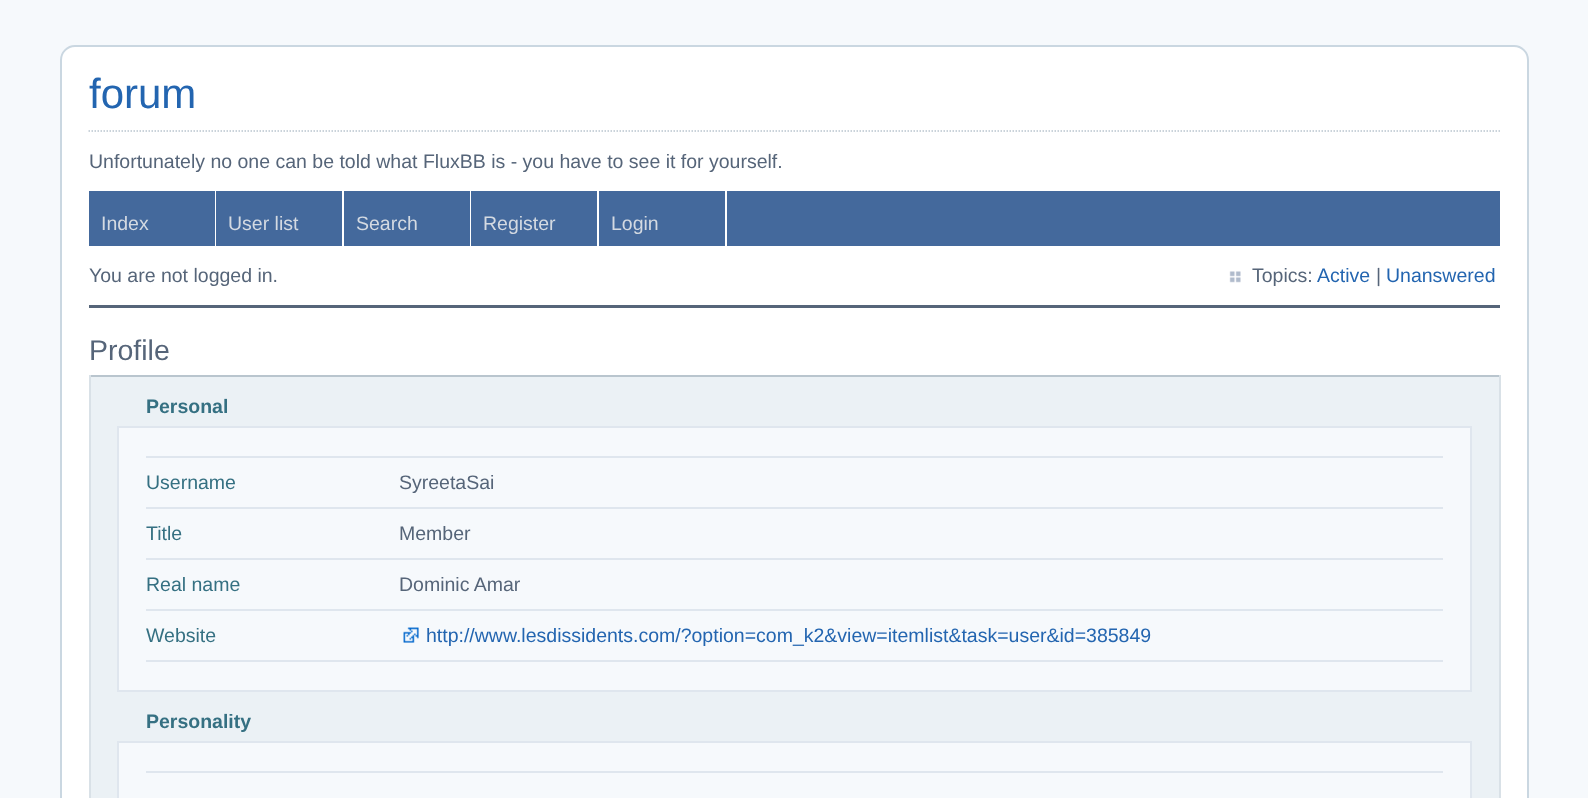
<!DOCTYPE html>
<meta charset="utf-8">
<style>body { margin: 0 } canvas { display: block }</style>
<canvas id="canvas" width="1588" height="798"></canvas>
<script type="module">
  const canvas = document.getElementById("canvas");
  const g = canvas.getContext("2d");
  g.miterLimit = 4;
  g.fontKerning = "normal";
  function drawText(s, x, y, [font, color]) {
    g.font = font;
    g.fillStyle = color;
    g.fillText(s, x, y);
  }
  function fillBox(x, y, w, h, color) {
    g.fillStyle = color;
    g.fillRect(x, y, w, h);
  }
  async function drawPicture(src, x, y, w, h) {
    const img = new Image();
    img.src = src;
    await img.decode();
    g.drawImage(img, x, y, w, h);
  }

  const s1 = ["42px Liberation Sans", "#2365B0"];
  const s2 = ["19.5px Liberation Sans", "#566579"];
  const s3 = ["19.5px Liberation Sans", "#D4DAE2"];
  const s4 = ["19.5px Liberation Sans", "#2365B0"];
  const s5 = ["28.5px Liberation Sans", "#566579"];
  const s6 = ["bold 19.5px Liberation Sans", "#357082"];
  const s7 = ["19.5px Liberation Sans", "#357082"];

  fillBox(0, 0, 1588, 798, "#F6F9FC");
  g.fillStyle = "#FFFFFF";
  g.beginPath();
  g.roundRect(61, 46, 1467, 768, 14);
  g.fill();
  g.strokeStyle = "#CAD7E1";
  g.lineWidth = 2;
  g.stroke();
  drawText("forum", 89, 108, s1);
  g.beginPath();
  g.moveTo(88.5, 131);
  g.lineTo(1500, 131);
  g.strokeStyle = "#B9C5CE";
  g.lineWidth = 1.5;
  g.setLineDash([1.5, 1.5]);
  g.stroke();
  drawText("Unfortunately no one can be told what FluxBB is - you have to see it for yourself.", 89, 168, s2);
  fillBox(89, 191, 1411, 55, "#44699C");
  fillBox(215, 191, 1, 55, "#FFFFFF");
  drawText("Index", 101, 230, s3);
  fillBox(342, 191, 2, 55, "#FFFFFF");
  drawText("User list", 228, 230, s3);
  fillBox(470, 191, 1, 55, "#FFFFFF");
  drawText("Search", 356, 230, s3);
  fillBox(597, 191, 2, 55, "#FFFFFF");
  drawText("Register", 483, 230, s3);
  fillBox(725, 191, 2, 55, "#FFFFFF");
  drawText("Login", 611, 230, s3);
  drawText("You are not logged in.", 89, 282, s2);
  await drawPicture("pic1.png", 1229, 271, 12, 12);
  drawText("Topics:", 1252, 282, s2);
  drawText("Active", 1317, 282, s4);
  drawText("|", 1376, 282, s2);
  drawText("Unanswered", 1386, 282, s4);
  fillBox(89, 305, 1411, 3, "#566579");
  drawText("Profile", 89, 360, s5);
  fillBox(91, 377, 1408, 421, "#EBF1F5");
  fillBox(89, 375, 1411, 2, "#B9C5CE");
  fillBox(1499, 375, 2, 423, "#D9E1E7");
  fillBox(89, 375, 2, 423, "#D9E1E7");
  drawText("Personal", 146, 413, s6);
  g.fillStyle = "#F6F9FC";
  g.beginPath();
  g.rect(118, 427, 1353, 264);
  g.fill();
  g.strokeStyle = "#DFE6EE";
  g.lineWidth = 2;
  g.setLineDash([]);
  g.stroke();
  fillBox(146, 456, 1297, 2, "#DFE6EE");
  drawText("Username", 146, 489, s7);
  fillBox(146, 507, 1297, 2, "#DFE6EE");
  drawText("SyreetaSai", 399, 489, s2);
  drawText("Title", 146, 540, s7);
  fillBox(146, 558, 1297, 2, "#DFE6EE");
  drawText("Member", 399, 540, s2);
  drawText("Real name", 146, 591, s7);
  fillBox(146, 609, 1297, 2, "#DFE6EE");
  drawText("Dominic Amar", 399, 591, s2);
  drawText("Website", 146, 642, s7);
  fillBox(146, 660, 1297, 2, "#DFE6EE");
  await drawPicture("pic2.png", 403, 627, 16, 16);
  drawText("http://www.lesdissidents.com/?option=com_k2&view=itemlist&task=user&id=385849", 426, 642, s4);
  drawText("Personality", 146, 728, s6);
  g.fillStyle = "#F6F9FC";
  g.beginPath();
  g.rect(118, 742, 1353, 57);
  g.fill();
  g.stroke();
  fillBox(146, 771, 1297, 2, "#DFE6EE");
</script>
